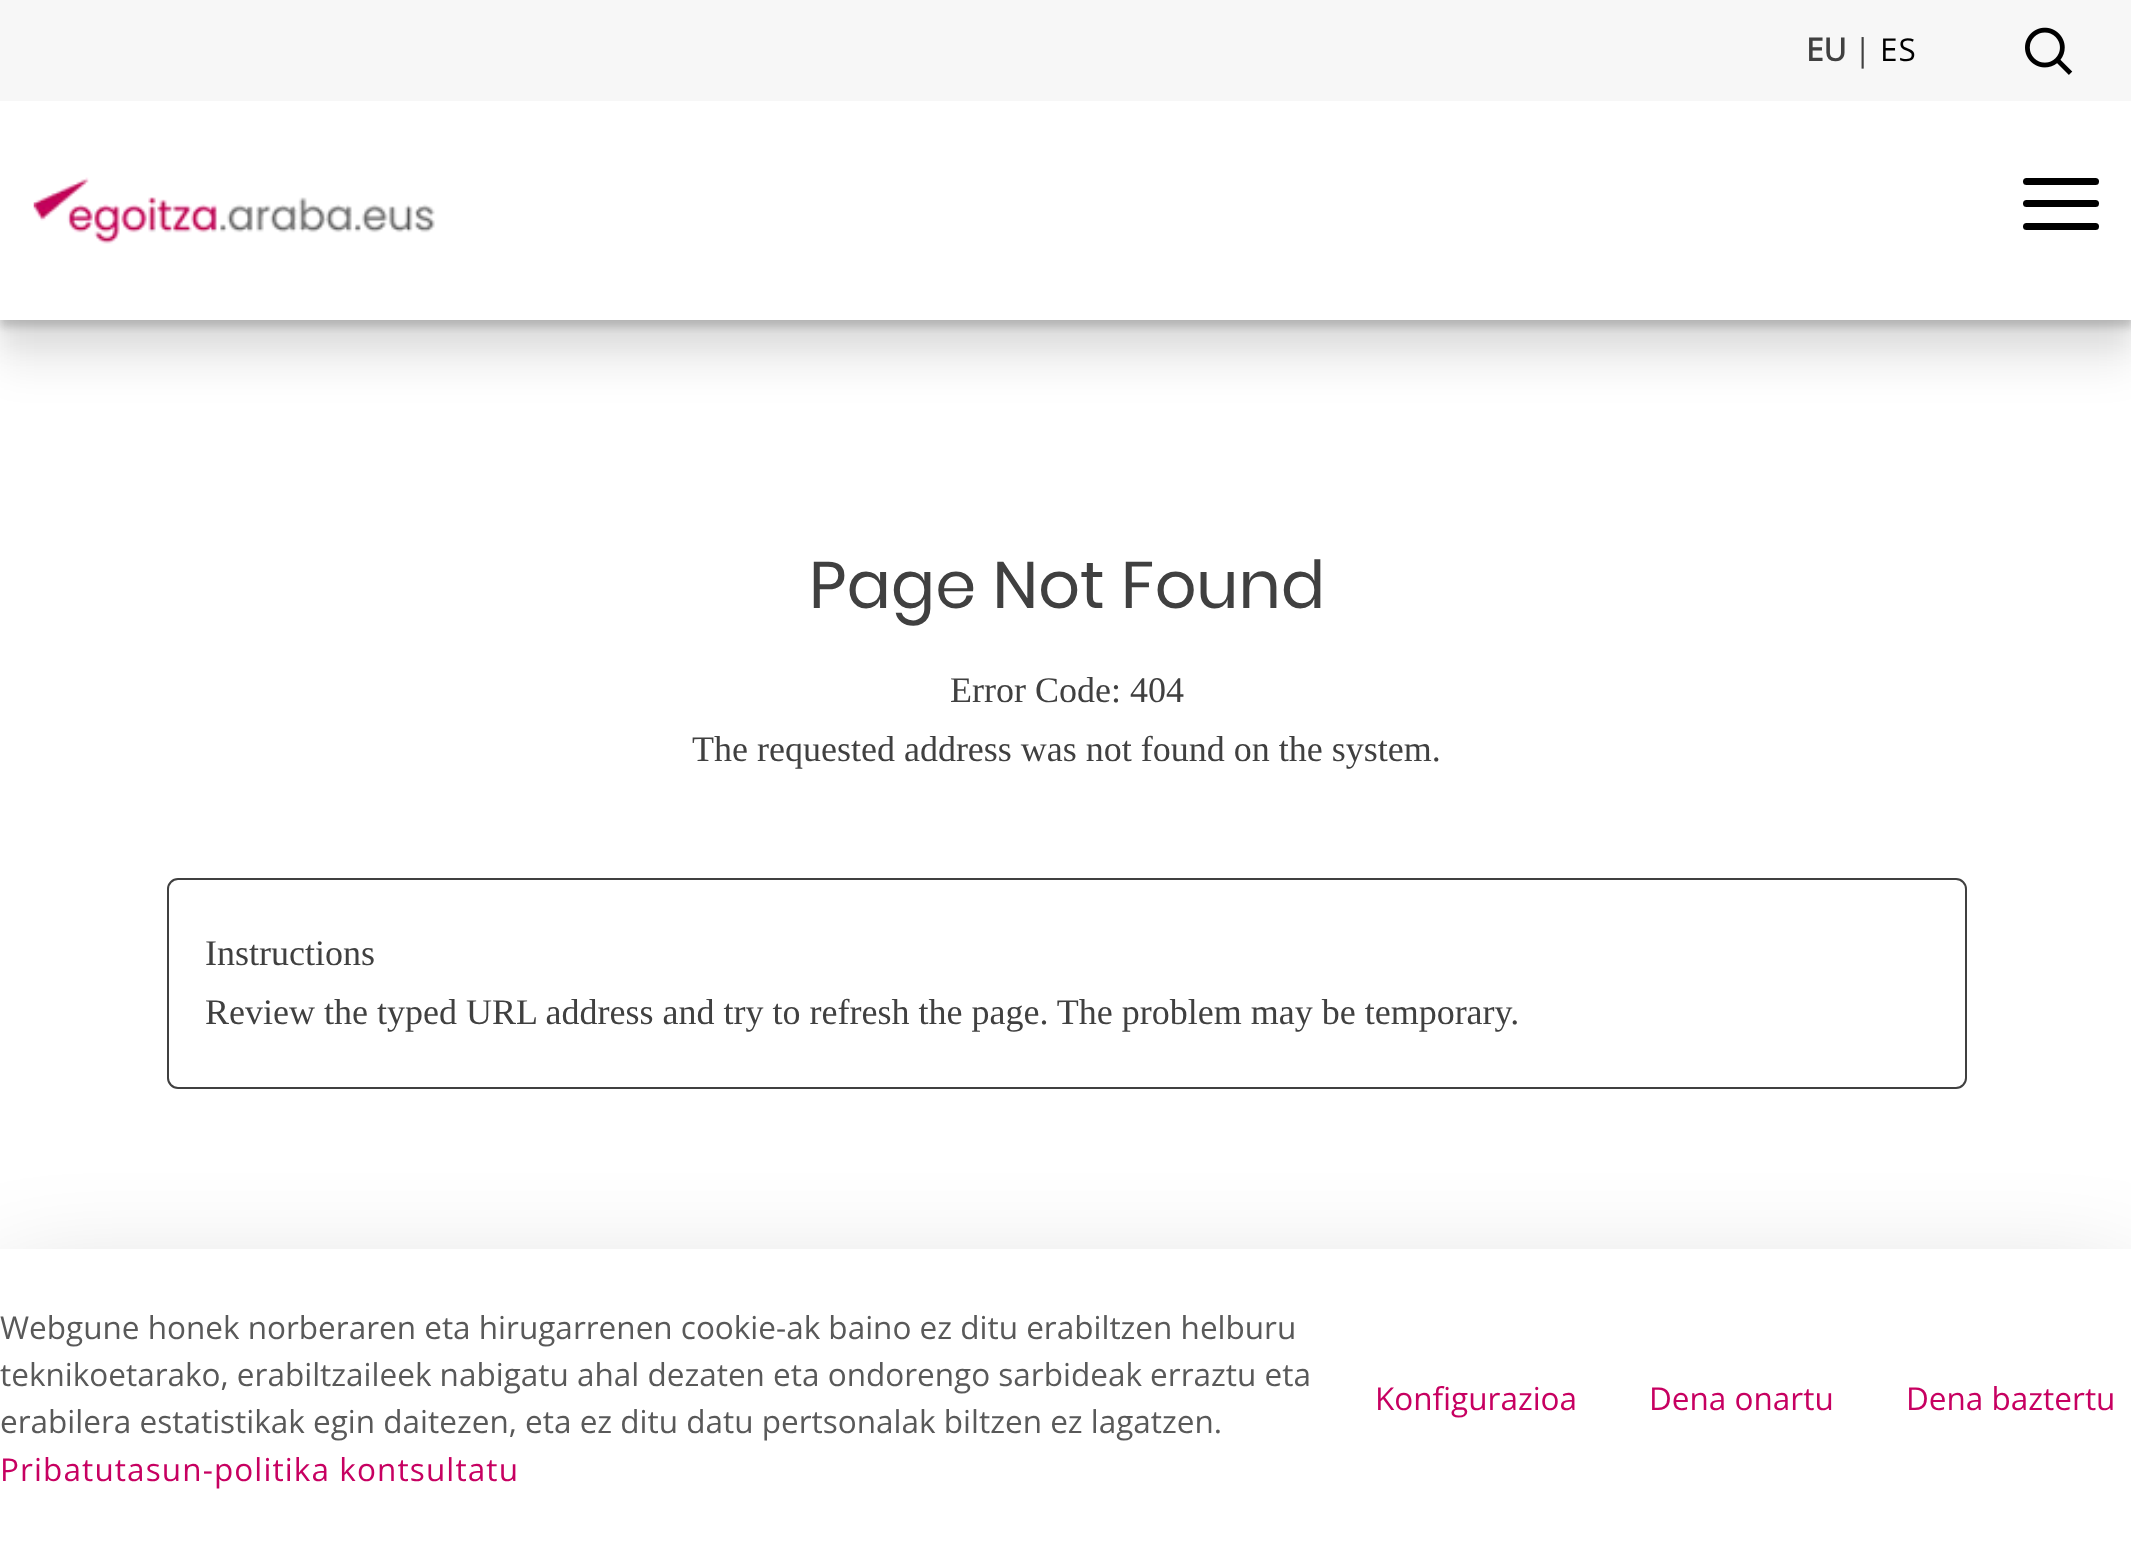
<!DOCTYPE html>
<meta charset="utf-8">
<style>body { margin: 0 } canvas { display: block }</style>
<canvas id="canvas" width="2131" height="1544"></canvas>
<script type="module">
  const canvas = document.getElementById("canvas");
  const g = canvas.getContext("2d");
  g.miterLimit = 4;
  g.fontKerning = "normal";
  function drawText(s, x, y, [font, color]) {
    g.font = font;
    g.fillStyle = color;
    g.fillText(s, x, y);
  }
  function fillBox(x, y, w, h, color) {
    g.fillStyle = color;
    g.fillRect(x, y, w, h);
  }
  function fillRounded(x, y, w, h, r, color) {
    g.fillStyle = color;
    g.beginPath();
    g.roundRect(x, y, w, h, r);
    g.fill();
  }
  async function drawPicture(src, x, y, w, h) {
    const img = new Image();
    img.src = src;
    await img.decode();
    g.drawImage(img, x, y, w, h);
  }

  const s1 = ["bold 31.5px Open Sans", "#404040"];
  const s2 = ["31.5px Open Sans", "#404040"];
  const s3 = ["31.5px Open Sans", "#000000"];
  const s4 = ["65.75px Poppins", "#404040"];
  const s5 = ["36px Liberation Serif", "#404040"];
  const s6 = ["31.5px Open Sans", "#595959"];
  const s7 = ["31.5px Open Sans", "#C70061"];

  fillBox(0, 0, 2131, 1544, "#FFFFFF");
  g.fillStyle = "rgba(0, 0, 0, 0.12)";
  g.filter = "blur(4.5px)";
  g.beginPath();
  g.rect(0, 5, 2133, 319);
  g.fill();
  g.filter = "none";
  g.fillStyle = "rgba(0, 0, 0, 0.09)";
  g.filter = "blur(3.5px)";
  g.beginPath();
  g.rect(0, 9, 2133, 320);
  g.fill();
  g.filter = "none";
  g.fillStyle = "rgba(0, 0, 0, 0.07)";
  g.filter = "blur(19px)";
  g.beginPath();
  g.rect(0, 50, 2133, 319);
  g.fill();
  g.filter = "none";
  g.fillStyle = "rgba(0, 0, 0, 0.06)";
  g.filter = "blur(11px)";
  g.beginPath();
  g.rect(0, 27, 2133, 320);
  g.fill();
  g.filter = "none";
  fillBox(0, 101, 2131, 219, "#FFFFFF");
  fillBox(0, 0, 2131, 101, "#F7F7F7");
  drawText("EU", 1806, 61, s1);
  drawText("|", 1854, 61, s2);
  g.letterSpacing = "1.1px";
  drawText("ES", 1880, 61, s3);
  await drawPicture("pic1.png", 2025, 27, 48, 48);
  await drawPicture("pic2.png", 33, 177, 402, 67);
  fillRounded(2023, 200, 76, 7, 3.5, "#000000");
  fillRounded(2023, 178, 76, 7, 3.5, "#000000");
  fillRounded(2023, 223, 76, 7, 3.5, "#000000");
  g.letterSpacing = "0px";
  drawText("Page Not Found", 809, 608, s4);
  drawText("Error Code: 404", 950, 702, s5);
  drawText("The requested address was not found on the system.", 692, 761, s5);
  g.beginPath();
  g.roundRect(168, 879, 1798, 209, 10);
  g.strokeStyle = "#404040";
  g.lineWidth = 2;
  g.stroke();
  drawText("Instructions", 205, 965, s5);
  drawText("Review the typed URL address and try to refresh the page. The problem may be temporary.", 205, 1024, s5);
  g.fillStyle = "rgba(0, 0, 0, 0.18)";
  g.filter = "blur(54px)";
  g.beginPath();
  g.rect(0, 1285, 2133, 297);
  g.fill();
  g.filter = "none";
  fillBox(0, 1249, 2131, 295, "#FFFFFF");
  drawText("Webgune honek norberaren eta hirugarrenen cookie-ak baino ez ditu erabiltzen helburu", 0, 1339, s6);
  drawText("teknikoetarako, erabiltzaileek nabigatu ahal dezaten eta ondorengo sarbideak erraztu eta", 0, 1386, s6);
  drawText("erabilera estatistikak egin daitezen, eta ez ditu datu pertsonalak biltzen ez lagatzen.", 0, 1433, s6);
  g.letterSpacing = "1.1px";
  drawText("Pribatutasun-politika kontsultatu", 0, 1481, s7);
  g.letterSpacing = "0px";
  drawText("Konfigurazioa", 1375, 1410, s7);
  drawText("Dena onartu", 1649, 1410, s7);
  drawText("Dena baztertu", 1906, 1410, s7);
</script>
